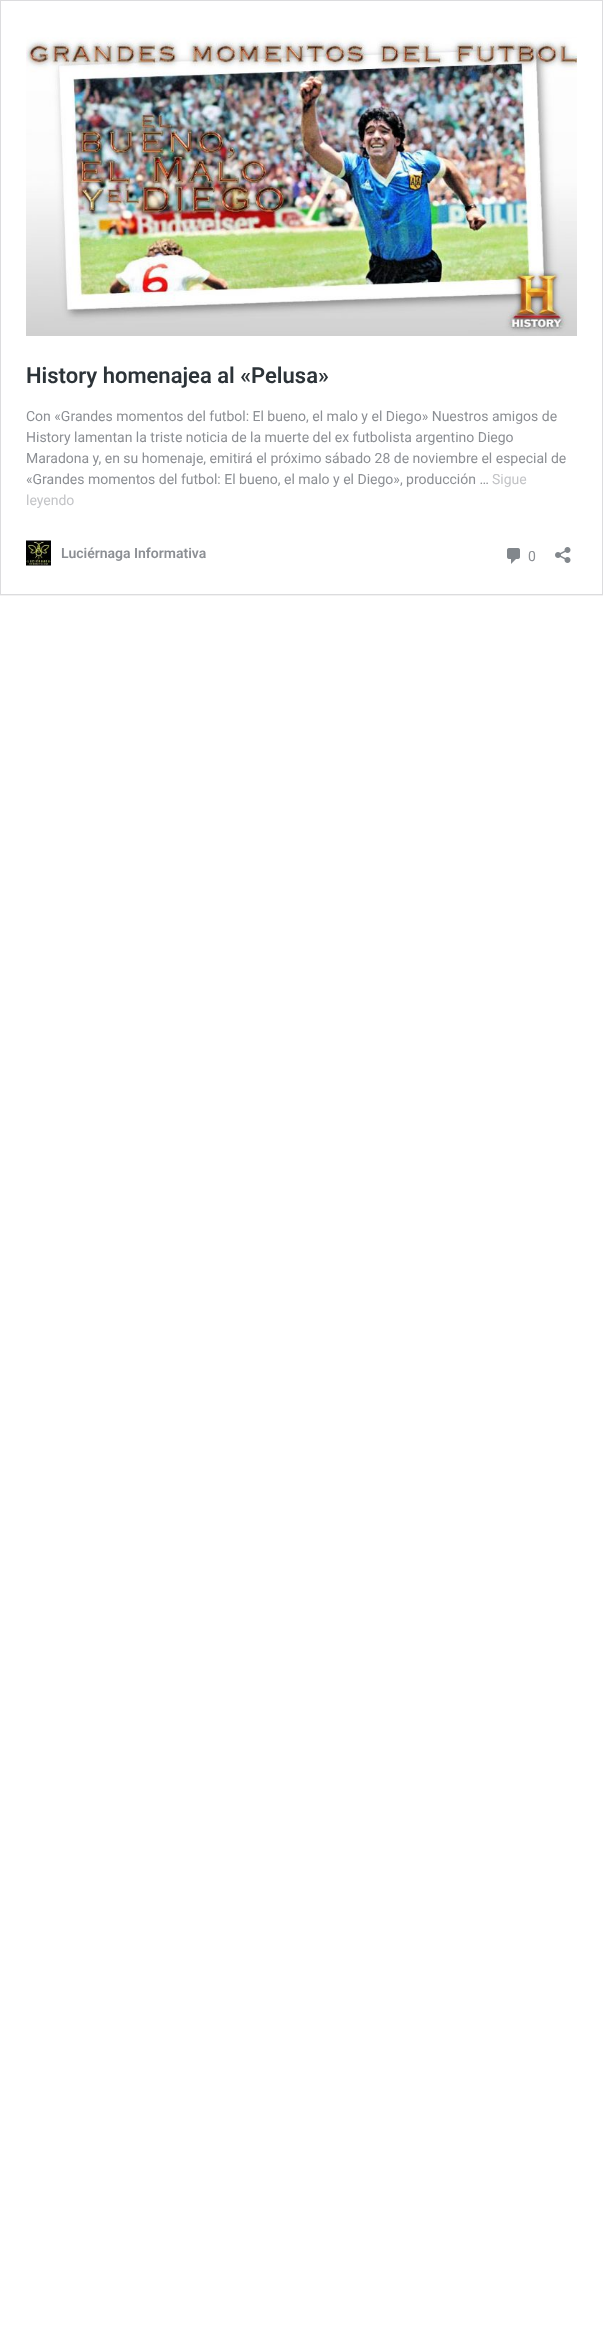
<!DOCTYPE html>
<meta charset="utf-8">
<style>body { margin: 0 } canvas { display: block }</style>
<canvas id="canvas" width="603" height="2350"></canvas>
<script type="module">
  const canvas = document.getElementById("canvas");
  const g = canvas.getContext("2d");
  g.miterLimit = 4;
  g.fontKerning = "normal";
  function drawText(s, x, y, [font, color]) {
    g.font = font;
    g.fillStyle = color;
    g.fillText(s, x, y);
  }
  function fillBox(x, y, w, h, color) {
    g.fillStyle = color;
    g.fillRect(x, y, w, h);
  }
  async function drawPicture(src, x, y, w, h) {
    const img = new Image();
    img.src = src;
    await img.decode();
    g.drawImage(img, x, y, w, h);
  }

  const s1 = ["600 22px Roboto", "#2C3338"];
  const s2 = ["14px Roboto", "#8C8F94"];
  const s3 = ["14px Roboto", "#C3C4C7"];
  const s4 = ["600 14px Roboto", "#8C8F94"];

  fillBox(0, 0, 603, 2350, "#FFFFFF");
  g.save();
  g.beginPath();
  g.rect(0, 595, 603, 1);
  g.clip();
  g.fillStyle = "rgba(0, 0, 0, 0.05)";
  g.filter = "blur(0.5px)";
  g.beginPath();
  g.rect(0, 1, 603, 595);
  g.fill();
  g.filter = "none";
  g.restore();
  g.strokeStyle = "#DCDCDE";
  g.strokeRect(0.5, 0.5, 602, 594);
  await drawPicture("pic1.png", 26, 37, 551, 299);
  drawText("History homenajea al «Pelusa»", 26, 383, s1);
  drawText("Con «Grandes momentos del futbol: El bueno, el malo y el Diego» Nuestros amigos de", 26, 421, s2);
  drawText("History lamentan la triste noticia de la muerte del ex futbolista argentino Diego", 26, 442, s2);
  drawText("Maradona y, en su homenaje, emitirá el próximo sábado 28 de noviembre el especial de", 26, 463, s2);
  drawText("«Grandes momentos del futbol: El bueno, el malo y el Diego», producción …", 26, 484, s2);
  drawText("Sigue", 492, 484, s3);
  drawText("leyendo", 26, 505, s3);
  await drawPicture("pic2.png", 26, 540, 25, 26);
  drawText("Luciérnaga Informativa", 61, 558, s4);
  await drawPicture("pic3.png", 507, 548, 13, 16);
  drawText("0", 528, 561, s2);
  await drawPicture("pic4.png", 555, 547, 16, 16);
</script>
